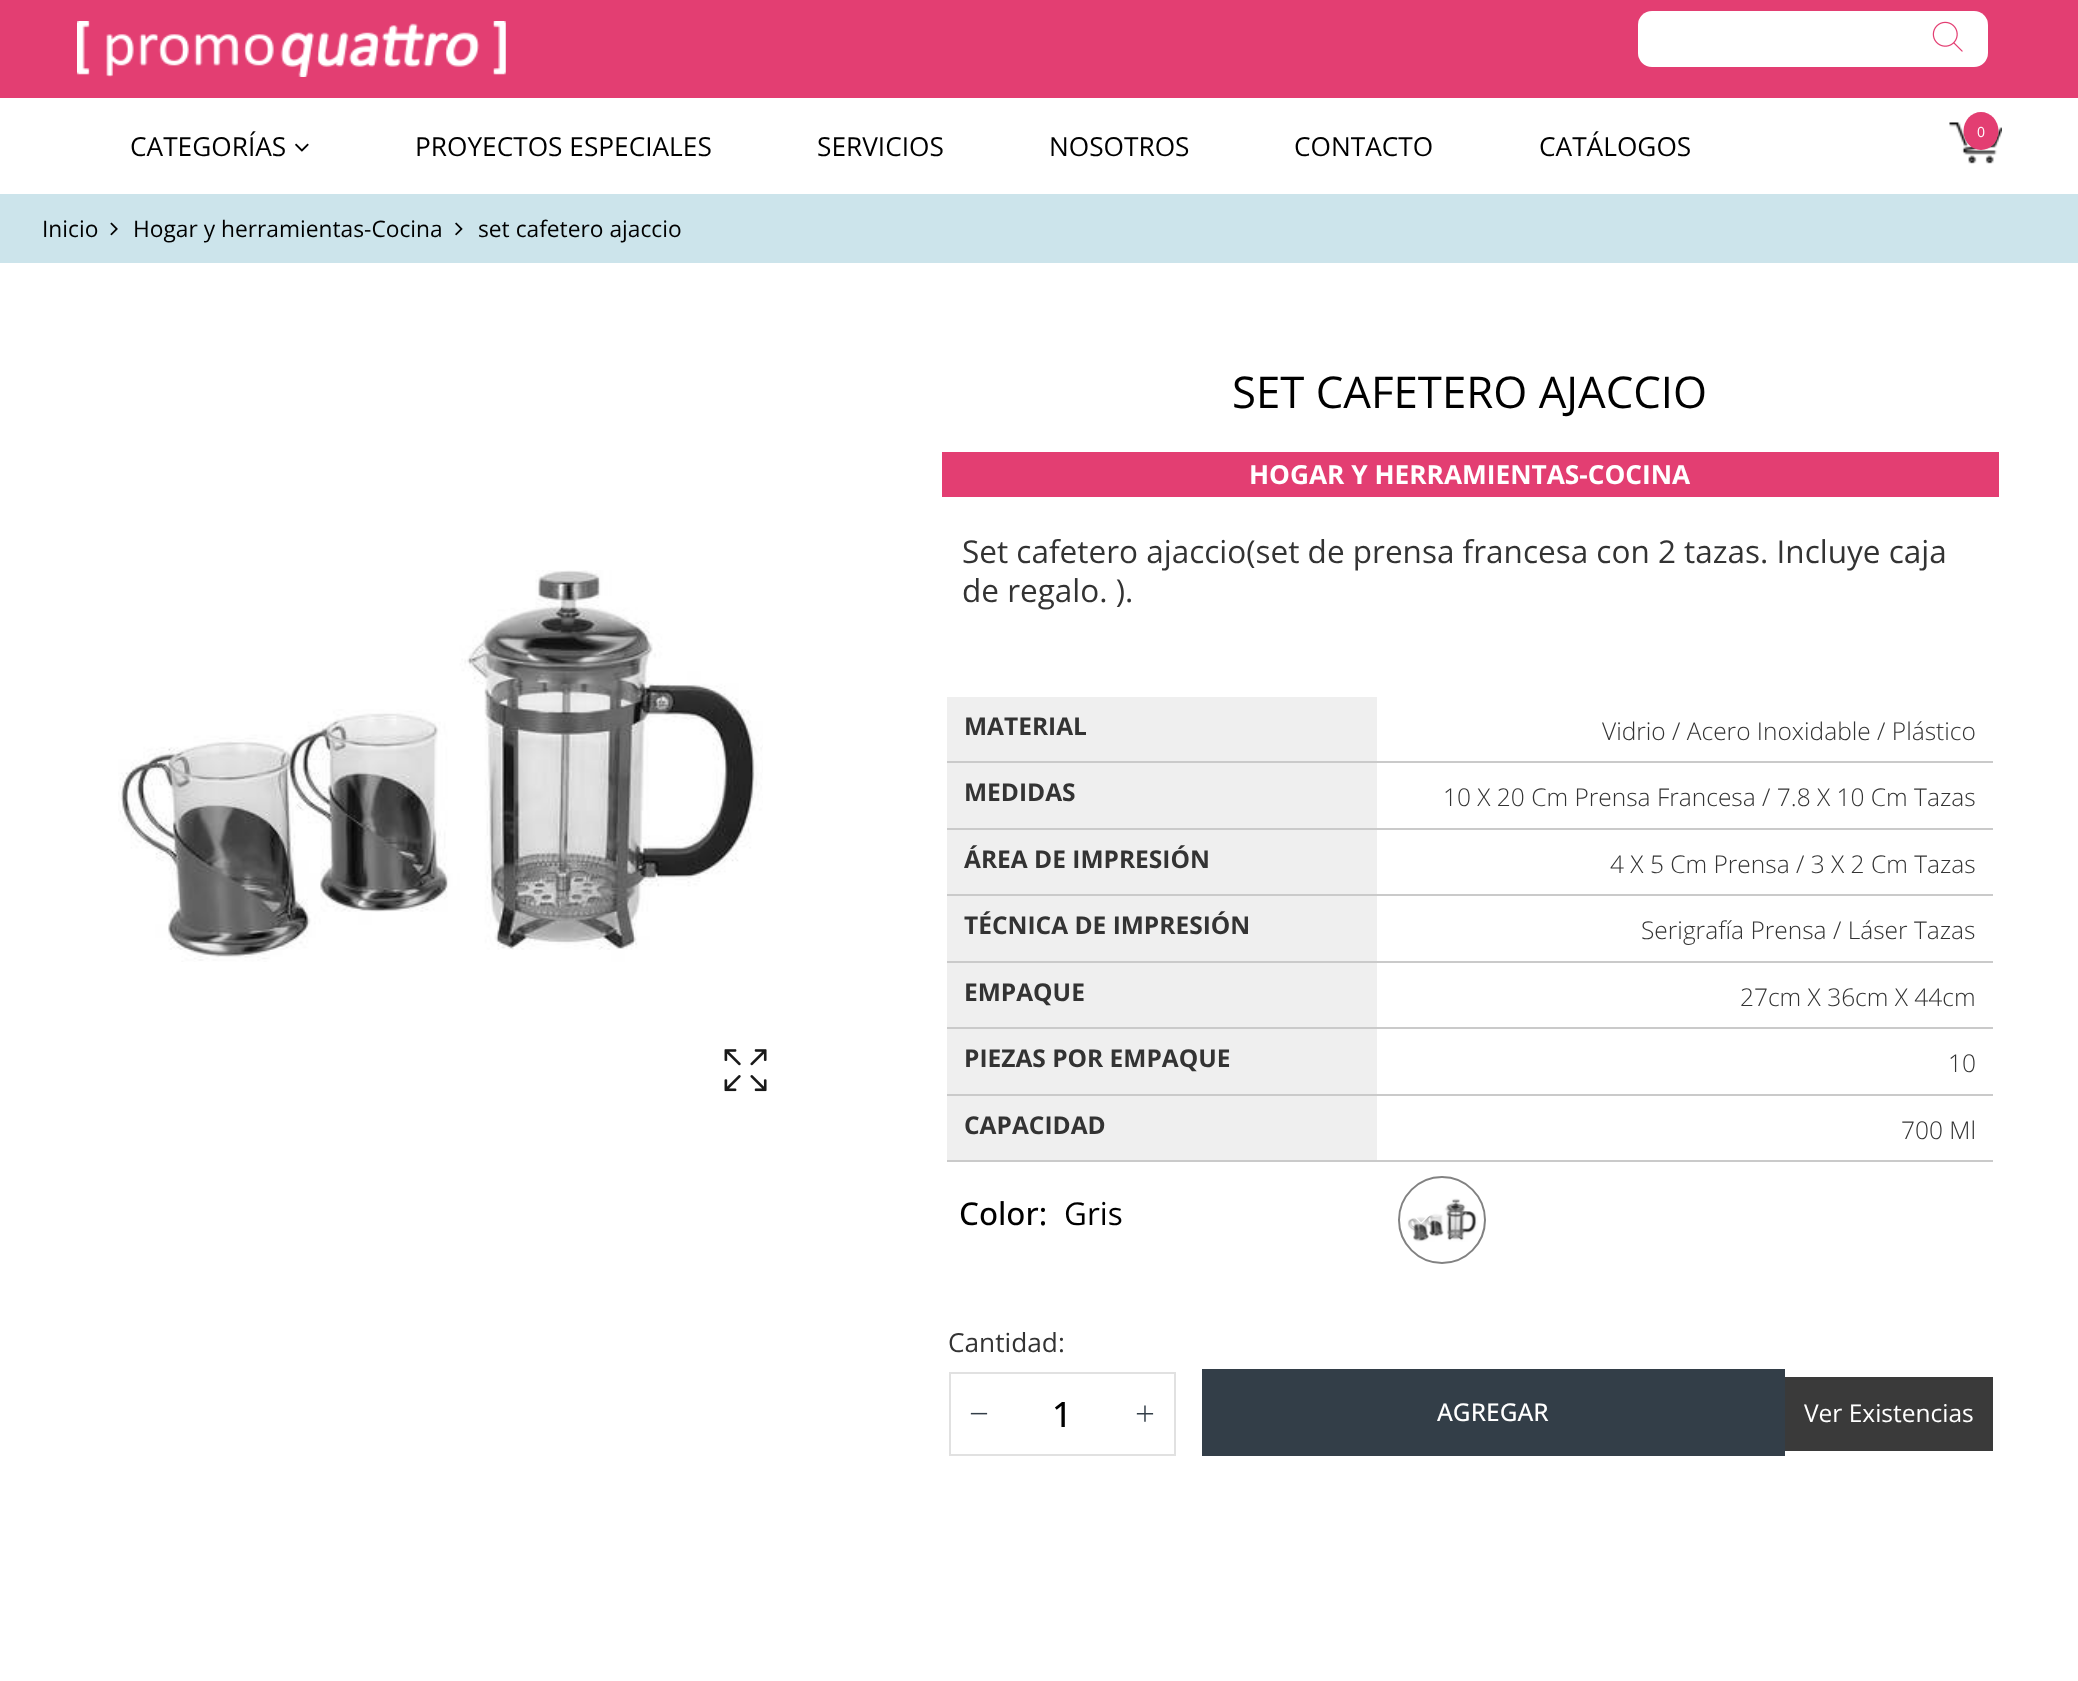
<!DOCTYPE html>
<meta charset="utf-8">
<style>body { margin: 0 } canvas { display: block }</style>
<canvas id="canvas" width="2078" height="1681"></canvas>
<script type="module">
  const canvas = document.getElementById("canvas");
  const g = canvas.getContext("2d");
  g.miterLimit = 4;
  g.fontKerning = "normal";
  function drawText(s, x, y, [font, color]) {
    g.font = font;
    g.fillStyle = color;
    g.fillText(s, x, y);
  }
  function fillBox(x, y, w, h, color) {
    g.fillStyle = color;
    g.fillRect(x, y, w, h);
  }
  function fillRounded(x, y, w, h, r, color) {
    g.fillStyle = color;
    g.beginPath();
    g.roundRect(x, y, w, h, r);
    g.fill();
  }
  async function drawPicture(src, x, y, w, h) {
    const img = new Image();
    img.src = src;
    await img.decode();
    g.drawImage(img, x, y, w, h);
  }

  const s1 = ["26.25px Open Sans", "#000000"];
  const s2 = ["14px Open Sans", "#FFFFFF"];
  const s3 = ["22.75px Open Sans", "#000000"];
  const s4 = ["43.75px Open Sans", "#000000"];
  const s5 = ["bold 26.25px Open Sans", "#FFFFFF"];
  const s6 = ["31.5px Open Sans", "#333333"];
  const s7 = ["bold 24.5px Open Sans", "#333333"];
  const s8 = ["300 24.5px Open Sans", "#333333"];
  const s9 = ["500 31.5px Open Sans", "#000000"];
  const s10 = ["31.5px Open Sans", "#000000"];
  const s11 = ["26.25px Open Sans", "#333333"];
  const s12 = ["300 35px Open Sans", "#333E48"];
  const s13 = ["500 35px Open Sans", "#000000"];
  const s14 = ["500 24.5px Open Sans", "#FFFFFF"];
  const s15 = ["24.5px Open Sans", "#FFFFFF"];

  fillBox(0, 0, 2078, 1681, "#FFFFFF");
  fillBox(0, 0, 2078, 98, "#E33E72");
  await drawPicture("pic1.png", 77, 21, 429, 56);
  fillRounded(1638, 11, 350, 56, 14, "#FFFFFF");
  await drawPicture("pic2.png", 1932, 21, 31, 31);
  drawText("CATEGORÍAS", 130, 156, s1);
  await drawPicture("pic3.png", 295, 143, 14, 9);
  drawText("PROYECTOS ESPECIALES", 415, 156, s1);
  drawText("SERVICIOS", 817, 156, s1);
  drawText("NOSOTROS", 1049, 156, s1);
  drawText("CONTACTO", 1294, 156, s1);
  drawText("CATÁLOGOS", 1539, 156, s1);
  await drawPicture("pic4.png", 1949, 122, 53, 42);
  g.fillStyle = "#E33E72";
  g.beginPath();
  g.ellipse(1981, 131, 17.5, 19, 0, 0, Math.PI * 2);
  g.fill();
  drawText("0", 1977, 137, s2);
  fillBox(0, 194, 2078, 69, "#CCE4EB");
  drawText("Inicio", 42, 237, s3);
  await drawPicture("pic5.png", 110, 222, 8, 14);
  drawText("Hogar y herramientas-Cocina", 133, 237, s3);
  await drawPicture("pic6.png", 455, 222, 8, 14);
  drawText("set cafetero ajaccio", 478, 237, s3);
  await drawPicture("pic7.png", 118, 570, 645, 392);
  await drawPicture("pic8.png", 724, 1049, 43, 43);
  drawText("SET CAFETERO AJACCIO", 1232, 408, s4);
  fillBox(942, 452, 1057, 45, "#E33E72");
  drawText("HOGAR Y HERRAMIENTAS-COCINA", 1249, 484, s5);
  drawText("Set cafetero ajaccio(set de prensa francesa con 2 tazas. Incluye caja", 962, 563, s6);
  drawText("de regalo. ).", 962, 602, s6);
  fillBox(947, 697, 430, 64, "#EFEFEF");
  fillBox(947, 761, 1046, 2, "#CACACA");
  drawText("MATERIAL", 964, 735, s7);
  drawText("Vidrio / Acero Inoxidable / Plástico", 1602, 740, s8);
  fillBox(947, 763, 430, 65, "#EFEFEF");
  fillBox(947, 828, 1046, 2, "#CACACA");
  drawText("MEDIDAS", 964, 801, s7);
  drawText("10 X 20 Cm Prensa Francesa / 7.8 X 10 Cm Tazas", 1443, 806, s8);
  fillBox(947, 830, 430, 64, "#EFEFEF");
  fillBox(947, 894, 1046, 2, "#CACACA");
  drawText("ÁREA DE IMPRESIÓN", 964, 868, s7);
  drawText("4 X 5 Cm Prensa / 3 X 2 Cm Tazas", 1610, 873, s8);
  fillBox(947, 896, 430, 65, "#EFEFEF");
  fillBox(947, 961, 1046, 2, "#CACACA");
  drawText("TÉCNICA DE IMPRESIÓN", 964, 934, s7);
  drawText("Serigrafía Prensa / Láser Tazas", 1641, 939, s8);
  fillBox(947, 963, 430, 64, "#EFEFEF");
  fillBox(947, 1027, 1046, 2, "#CACACA");
  drawText("EMPAQUE", 964, 1001, s7);
  drawText("27cm X 36cm X 44cm", 1740, 1006, s8);
  fillBox(947, 1029, 430, 65, "#EFEFEF");
  fillBox(947, 1094, 1046, 2, "#CACACA");
  drawText("PIEZAS POR EMPAQUE", 964, 1067, s7);
  drawText("10", 1948, 1072, s8);
  fillBox(947, 1096, 430, 64, "#EFEFEF");
  fillBox(947, 1160, 1046, 2, "#CACACA");
  drawText("CAPACIDAD", 964, 1134, s7);
  drawText("700 Ml", 1901, 1139, s8);
  drawText("Color:", 959, 1225, s9);
  drawText("Gris", 1064, 1225, s10);
  await drawPicture("pic9.png", 1407, 1198, 71, 44);
  g.beginPath();
  g.arc(1442, 1220, 43, 0, Math.PI * 2);
  g.strokeStyle = "#828282";
  g.lineWidth = 2;
  g.stroke();
  await drawPicture("pic10.png", 1415, 1215, 15, 9);
  drawText("Cantidad:", 948, 1352, s11);
  g.strokeStyle = "#E1E1E1";
  g.strokeRect(950, 1373, 225, 82);
  drawText("−", 969, 1426, s12);
  drawText("1", 1052, 1427, s13);
  drawText("+", 1135, 1426, s12);
  fillBox(1202, 1369, 583, 87, "#333E48");
  drawText("AGREGAR", 1437, 1421, s14);
  fillBox(1785, 1377, 208, 74, "#3A3A3A");
  drawText("Ver Existencias", 1804, 1422, s15);
</script>
